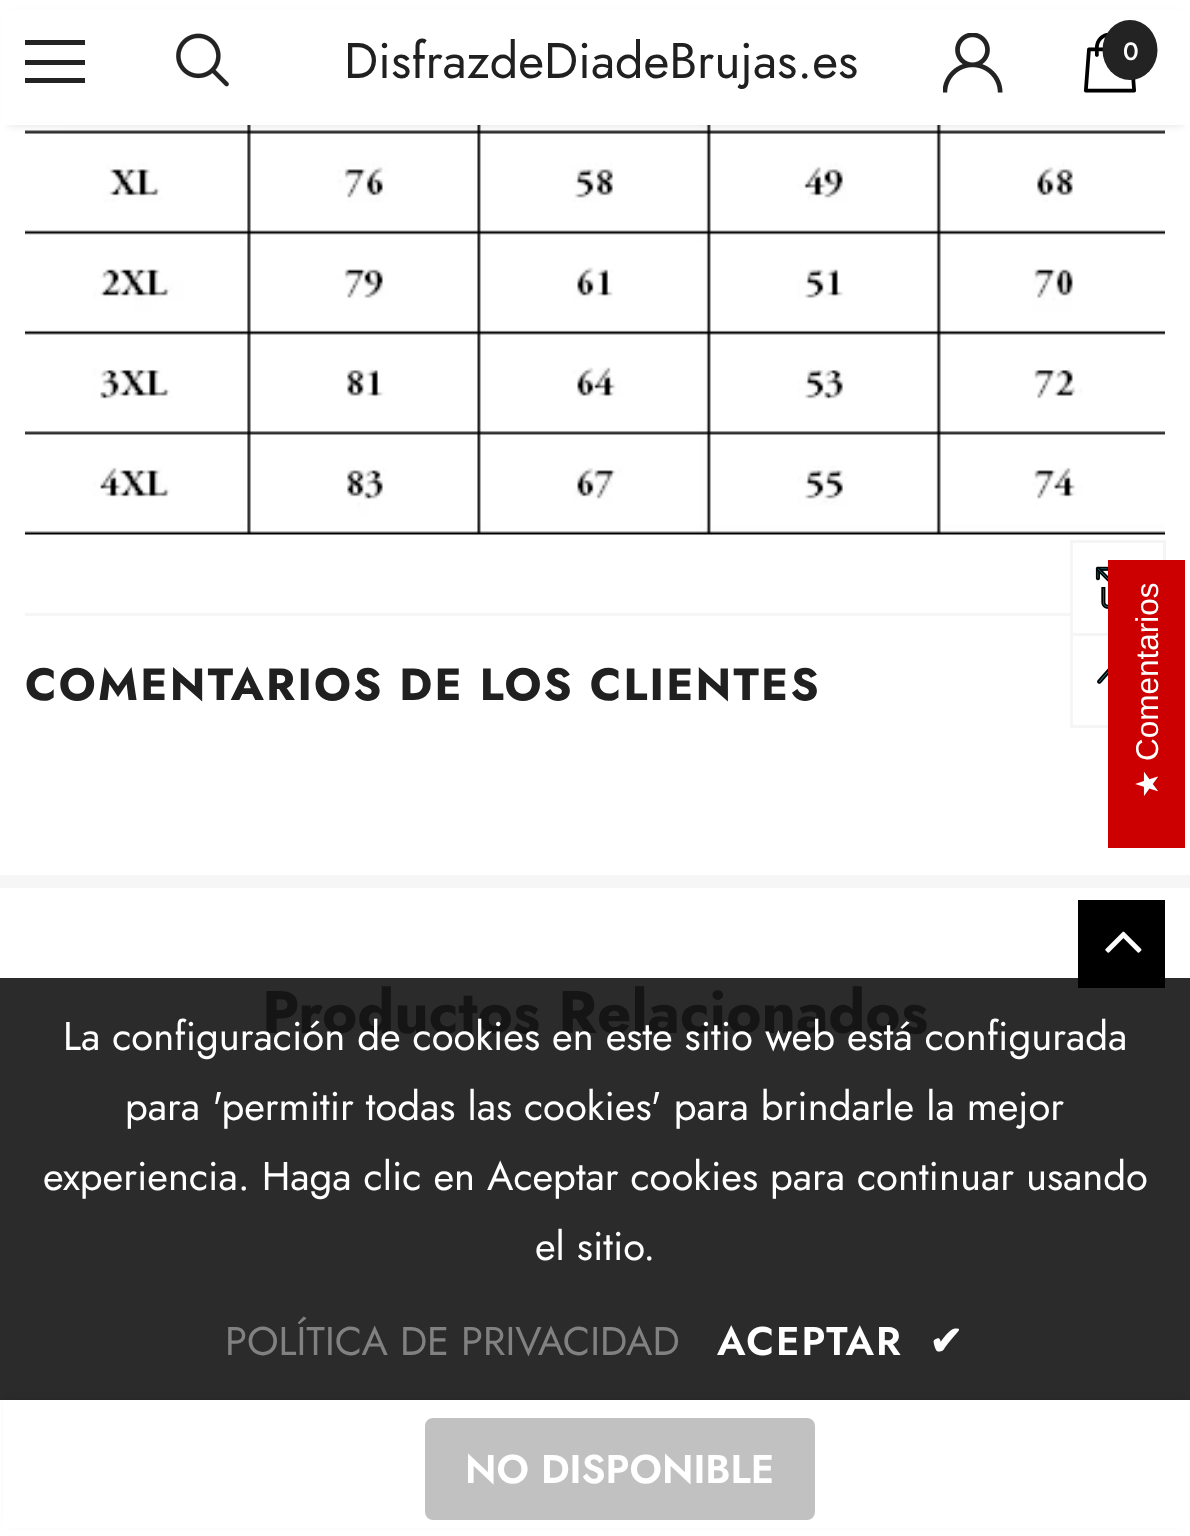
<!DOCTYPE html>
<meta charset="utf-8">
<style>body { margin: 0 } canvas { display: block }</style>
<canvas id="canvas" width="1190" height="1536"></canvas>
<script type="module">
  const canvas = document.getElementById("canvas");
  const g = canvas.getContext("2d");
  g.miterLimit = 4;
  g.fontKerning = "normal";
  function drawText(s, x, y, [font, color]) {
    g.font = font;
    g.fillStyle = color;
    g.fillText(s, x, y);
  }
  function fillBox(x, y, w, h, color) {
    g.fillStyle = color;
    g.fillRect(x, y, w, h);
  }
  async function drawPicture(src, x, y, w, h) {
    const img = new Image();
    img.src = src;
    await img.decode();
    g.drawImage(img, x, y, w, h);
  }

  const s1 = ["50px Jost", "#202020"];
  const s2 = ["500 25px Jost", "#FFFFFF"];
  const s3 = ["bold 45px Jost", "#202020"];
  const s4 = ["bold 60px Jost", "#151515"];
  const s5 = ["40px Jost", "#FFFFFF"];
  const s6 = ["40px Jost", "#818181"];
  const s7 = ["600 40px Jost", "#FFFFFF"];
  const s8 = ["bold 40px DejaVu Sans", "#FFFFFF"];

  fillBox(0, 0, 1190, 1536, "#FFFFFF");
  fillBox(0, 978, 1190, 422, "#2B2B2B");
  await drawPicture("pic6.png", 25, 125, 1140, 410);
  g.fillStyle = "rgba(0, 0, 0, 0.12)";
  g.filter = "blur(4px)";
  g.beginPath();
  g.rect(8, 15, 1175, 110);
  g.fill();
  g.filter = "none";
  fillBox(2, 9, 1187, 116, "#FFFFFF");
  fillBox(25, 40, 60, 5, "#232323");
  fillBox(25, 60, 60, 5, "#232323");
  fillBox(25, 78, 60, 5, "#232323");
  await drawPicture("pic1.png", 176, 33, 53, 54);
  drawText("DisfrazdeDiadeBrujas.es", 344, 78, s1);
  await drawPicture("pic2.png", 943, 33, 60, 60);
  await drawPicture("pic3.png", 1083, 33, 53, 60);
  g.fillStyle = "#232323";
  g.beginPath();
  g.ellipse(1130, 50, 27.5, 30, 0, 0, Math.PI * 2);
  g.fill();
  drawText("0", 1123, 60, s2);
  fillBox(1070, 540, 95, 3, "#F5F5F6");
  fillBox(1163, 540, 3, 20, "#F5F5F6");
  fillBox(1070, 540, 3, 93, "#F5F5F6");
  await drawPicture("pic4.png", 1095, 566, 13, 43);
  g.strokeStyle = "#F5F5F6";
  g.lineWidth = 3;
  g.strokeRect(1071.5, 634.5, 92, 92);
  await drawPicture("pic5.png", 1097, 668, 11, 16);
  fillBox(1108, 560, 77, 288, "#CC0000");
  g.font = "31.5px Liberation Sans";
  g.fillStyle = "#FFFFFF";
  g.save();
  g.translate(1158, 761);
  g.rotate(-90 * Math.PI / 180);
  g.fillText("Comentarios", 0, 0);
  g.restore();
  g.font = "31.5px DejaVu Sans";
  g.save();
  g.translate(1158, 798);
  g.rotate(-90 * Math.PI / 180);
  g.fillText("★", 0, 0);
  g.restore();
  fillBox(25, 613, 1045, 3, "#F6F6F6");
  g.letterSpacing = "2.25px";
  drawText("COMENTARIOS DE LOS CLIENTES", 25, 700, s3);
  fillBox(0, 875, 1190, 13, "#F6F6F6");
  g.letterSpacing = "0px";
  drawText("Productos Relacionados", 262, 1033, s4);
  fillBox(1078, 900, 87, 88, "#000000");
  await drawPicture("pic7.png", 1105, 931, 37, 22);
  drawText("La configuración de cookies en este sitio web está configurada", 63, 1050, s5);
  drawText("para 'permitir todas las cookies' para brindarle la mejor", 125, 1120, s5);
  drawText("experiencia. Haga clic en Aceptar cookies para continuar usando", 43, 1190, s5);
  drawText("el sitio.", 535, 1260, s5);
  drawText("POLÍTICA DE PRIVACIDAD", 225, 1355, s6);
  g.letterSpacing = "2px";
  drawText("ACEPTAR", 717, 1355, s7);
  drawText("✔", 929, 1355, s8);
  g.fillStyle = "rgba(0, 0, 0, 0.1)";
  g.filter = "blur(4px)";
  g.beginPath();
  g.rect(8, 1400, 1175, 123);
  g.fill();
  g.filter = "none";
  fillBox(3, 1400, 1185, 128, "#FFFFFF");
  g.fillStyle = "#C1C1C1";
  g.beginPath();
  g.roundRect(426.5, 1419.5, 387, 99, 6.5);
  g.fill();
  g.strokeStyle = "#C1C1C1";
  g.stroke();
  g.letterSpacing = "0px";
  drawText("NO DISPONIBLE", 465, 1483, s7);
</script>
